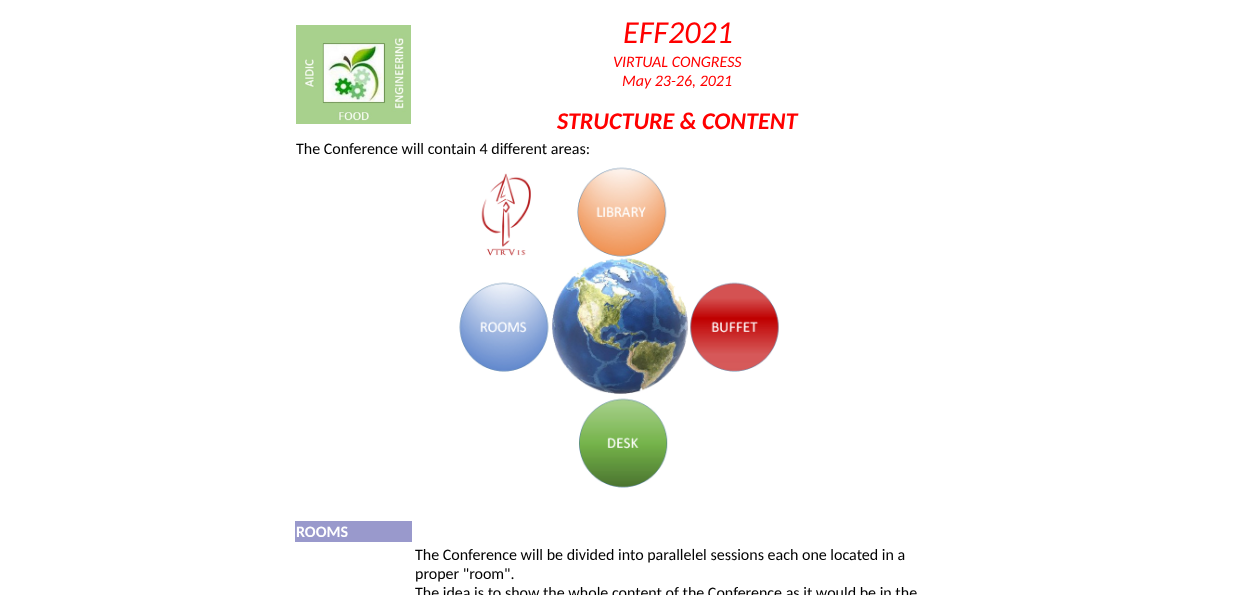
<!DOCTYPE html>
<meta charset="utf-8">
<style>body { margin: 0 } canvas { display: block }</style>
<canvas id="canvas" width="1236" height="595"></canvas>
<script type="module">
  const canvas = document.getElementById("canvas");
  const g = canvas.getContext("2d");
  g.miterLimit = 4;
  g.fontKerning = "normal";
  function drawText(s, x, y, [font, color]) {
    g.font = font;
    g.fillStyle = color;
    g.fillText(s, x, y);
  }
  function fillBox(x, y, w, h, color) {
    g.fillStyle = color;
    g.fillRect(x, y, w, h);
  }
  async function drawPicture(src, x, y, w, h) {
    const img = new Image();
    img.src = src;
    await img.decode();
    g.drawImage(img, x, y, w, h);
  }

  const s1 = ["italic 32px Carlito", "#FF0000"];
  const s2 = ["italic 16px Carlito", "#FF0000"];
  const s3 = ["italic bold 24px Carlito", "#FF0000"];
  const s4 = ["16px Carlito", "#000000"];
  const s5 = ["bold 16px Carlito", "#FFFFFF"];

  fillBox(0, 0, 1236, 595, "#FFFFFF");
  await drawPicture("pic1.png", 296, 25, 115, 99);
  drawText("EFF2021", 623, 43, s1);
  drawText("VIRTUAL CONGRESS", 613, 67, s2);
  drawText("May 23-26, 2021", 622, 86, s2);
  drawText("STRUCTURE & CONTENT", 557, 129, s3);
  drawText("The Conference will contain 4 different areas:", 296, 154, s4);
  await drawPicture("pic2.png", 459, 167, 320, 321);
  fillBox(295, 521, 117, 21, "#9999CC");
  drawText("ROOMS", 296, 537, s5);
  drawText("The Conference will be divided into parallelel sessions each one located in a", 415, 560, s4);
  drawText("proper \"room\".", 415, 579, s4);
  drawText("The idea is to show the whole content of the Conference as it would be in the", 415, 598, s4);
</script>
